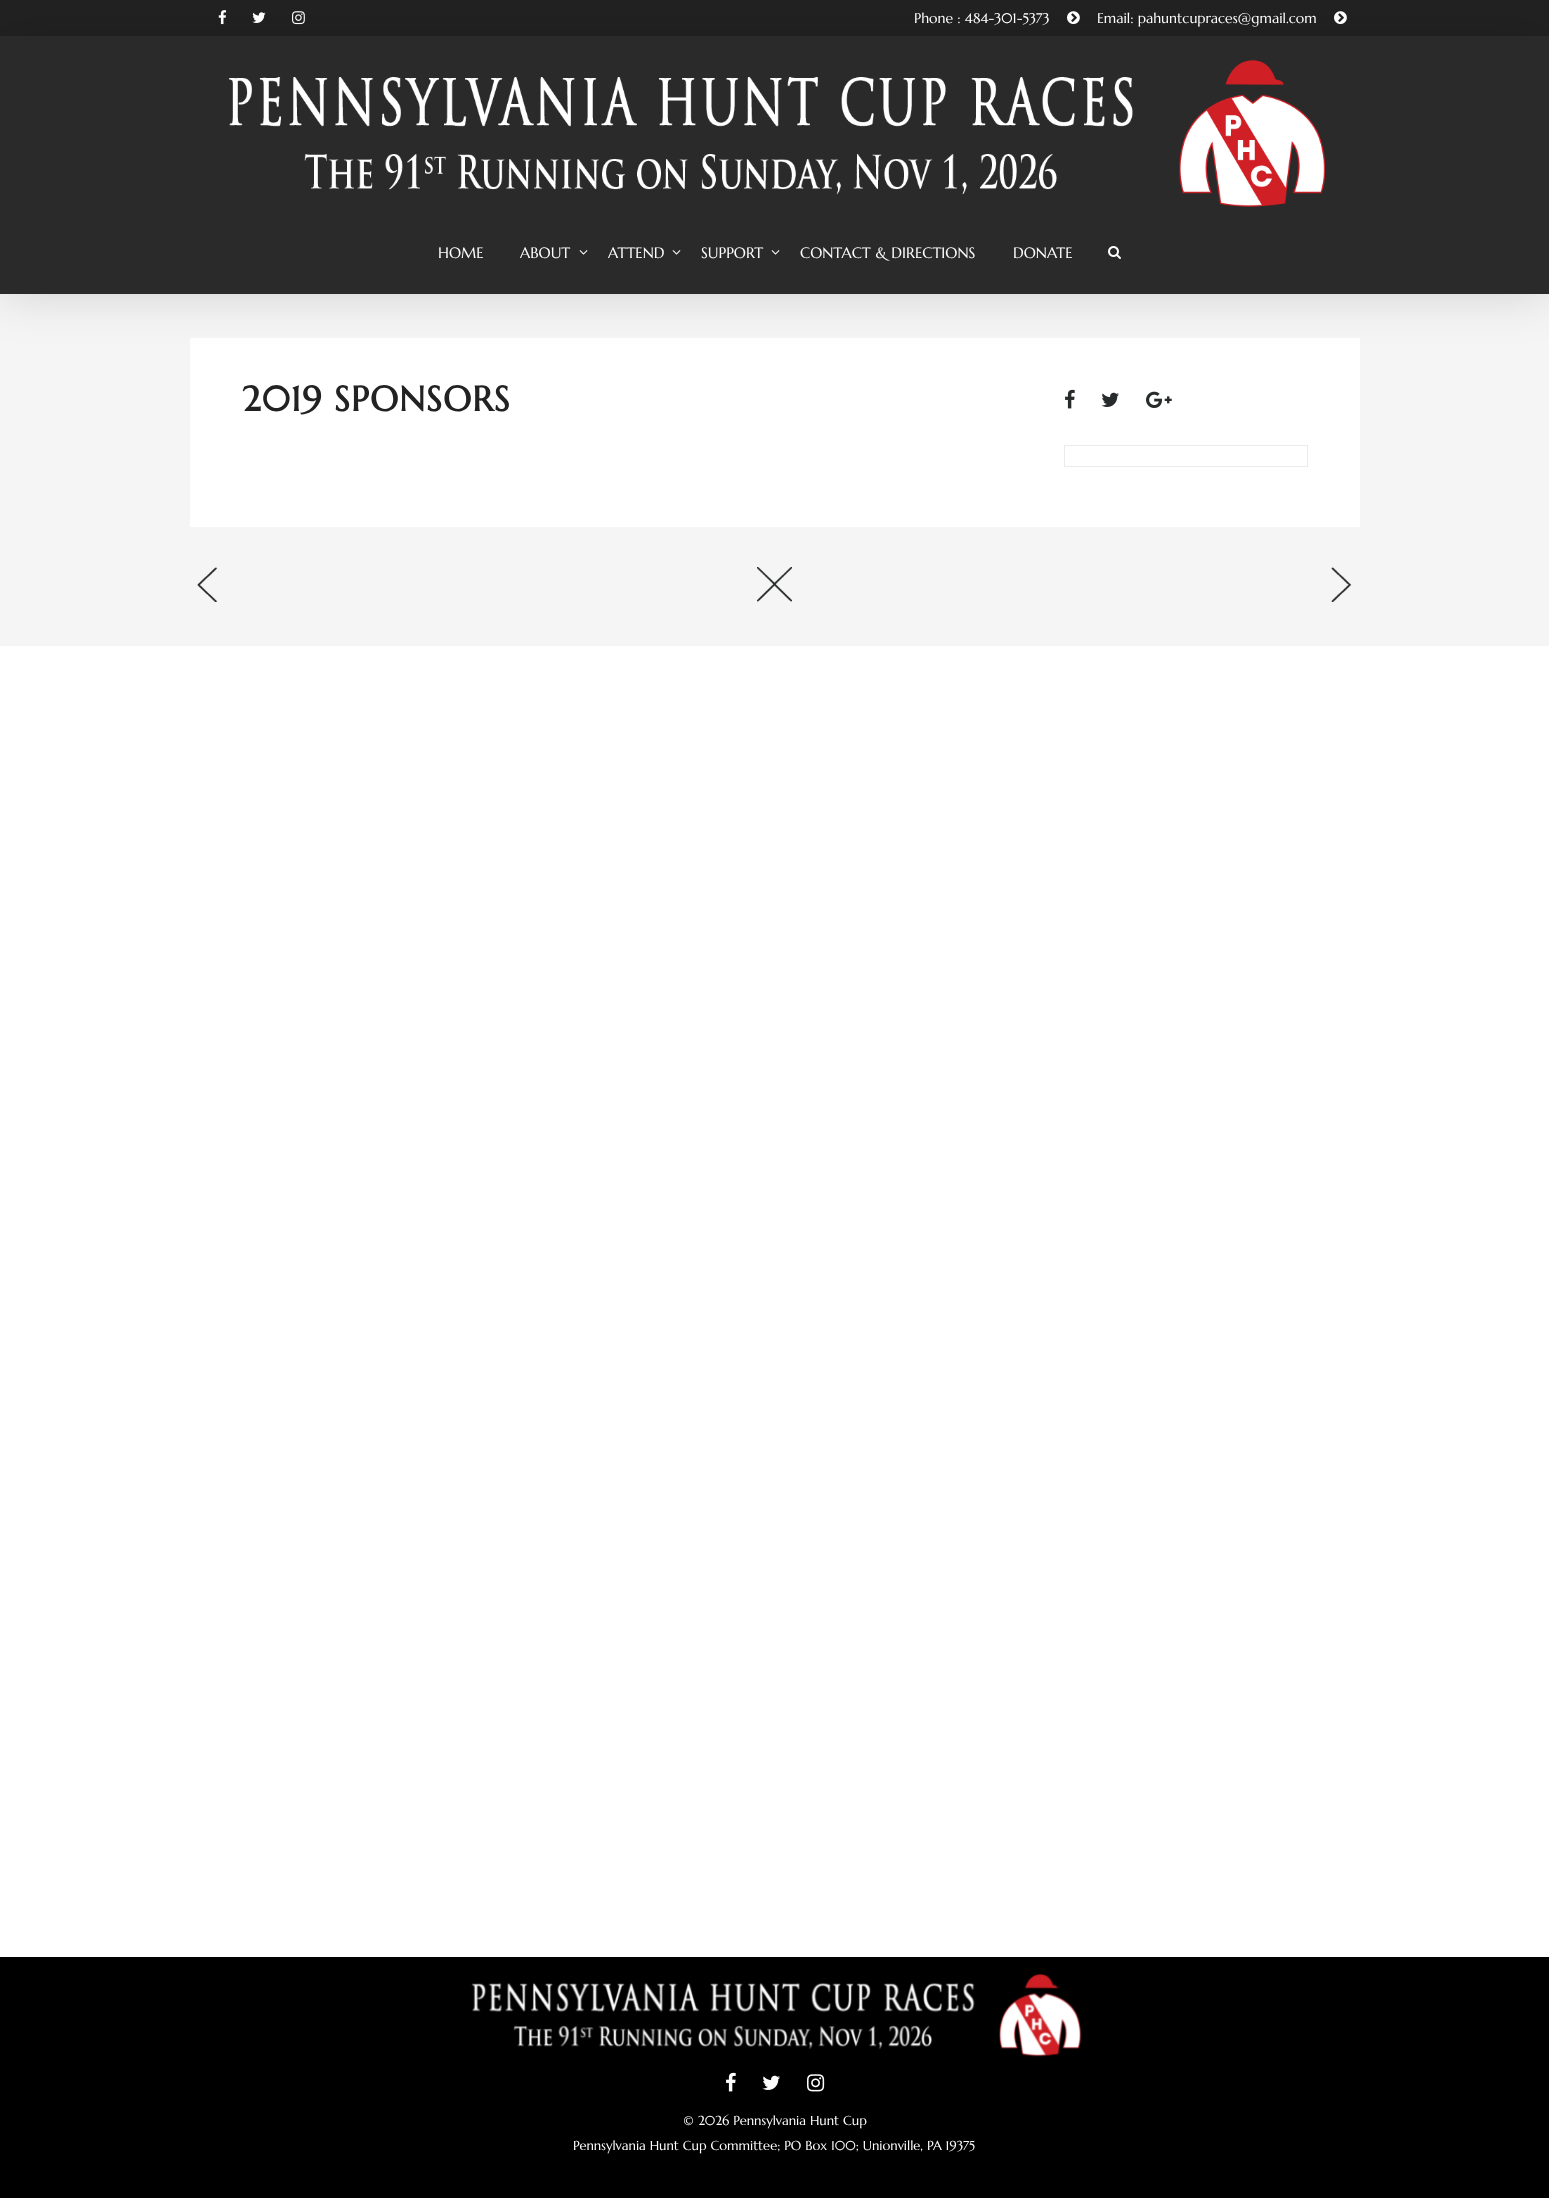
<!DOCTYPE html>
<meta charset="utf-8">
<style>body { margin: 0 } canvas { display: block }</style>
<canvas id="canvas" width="1549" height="2198"></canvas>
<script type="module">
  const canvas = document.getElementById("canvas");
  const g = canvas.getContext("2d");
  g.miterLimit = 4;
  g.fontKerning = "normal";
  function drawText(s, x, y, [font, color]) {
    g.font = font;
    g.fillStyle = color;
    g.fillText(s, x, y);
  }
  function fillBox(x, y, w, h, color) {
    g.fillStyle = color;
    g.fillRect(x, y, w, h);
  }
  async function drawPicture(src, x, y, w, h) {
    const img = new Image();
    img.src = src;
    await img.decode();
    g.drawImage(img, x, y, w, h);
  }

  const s1 = ["14px Marcellus", "#FFFFFF"];
  const s2 = ["15px Marcellus", "#FFFFFF"];
  const s3 = ["bold 35px Marcellus", "#222222"];
  const s4 = ["13px Marcellus", "#FFFFFF"];

  fillBox(0, 0, 1549, 2198, "#FFFFFF");
  fillBox(0, 0, 1549, 36, "#222222");
  fillBox(0, 294, 1549, 352, "#F5F5F5");
  fillBox(190, 338, 1170, 189, "#FFFFFF");
  g.fillStyle = "rgba(0, 0, 0, 0.15)";
  g.filter = "blur(25px)";
  g.beginPath();
  g.rect(0, 36, 1549, 258);
  g.fill();
  g.filter = "none";
  await drawPicture("pic1.png", 218, 10, 9, 15);
  await drawPicture("pic2.png", 252, 12, 14, 11);
  await drawPicture("pic3.png", 292, 11, 13, 14);
  drawText("Phone : 484-301-5373", 914, 23, s1);
  await drawPicture("pic4.png", 1067, 11, 13, 14);
  drawText("Email: pahuntcupraces@gmail.com", 1097, 23, s1);
  await drawPicture("pic4.png", 1334, 11, 13, 14);
  fillBox(0, 36, 1549, 258, "#2A2A2A");
  await drawPicture("pic5.png", 229, 60, 1097, 147);
  drawText("HOME", 438, 258, s2);
  drawText("ABOUT", 520, 258, s2);
  await drawPicture("pic6.png", 579, 250, 9, 5);
  drawText("ATTEND", 608, 258, s2);
  await drawPicture("pic6.png", 672, 250, 9, 5);
  drawText("SUPPORT", 701, 258, s2);
  await drawPicture("pic6.png", 771, 250, 9, 5);
  drawText("CONTACT & DIRECTIONS", 800, 258, s2);
  drawText("DONATE", 1013, 258, s2);
  await drawPicture("pic7.png", 1108, 246, 13, 13);
  g.letterSpacing = "1px";
  drawText("2019 SPONSORS", 242, 411, s3);
  await drawPicture("pic8.png", 1065, 389, 10, 20);
  await drawPicture("pic9.png", 1101, 392, 18, 15);
  await drawPicture("pic10.png", 1146, 391, 26, 17);
  g.strokeStyle = "#EBEBEB";
  g.strokeRect(1064.5, 445.5, 243, 21);
  await drawPicture("pic11.png", 197, 567, 21, 35);
  await drawPicture("pic12.png", 757, 567, 35, 35);
  await drawPicture("pic13.png", 1331, 567, 21, 35);
  fillBox(0, 1957, 1549, 241, "#000000");
  await drawPicture("pic14.png", 471, 1973, 611, 84);
  await drawPicture("pic15.png", 726, 2072, 10, 20);
  await drawPicture("pic16.png", 762, 2075, 18, 15);
  await drawPicture("pic17.png", 807, 2074, 18, 18);
  g.letterSpacing = "0px";
  drawText("© 2026 Pennsylvania Hunt Cup", 683, 2125, s4);
  drawText("Pennsylvania Hunt Cup Committee; PO Box 100; Unionville, PA 19375", 573, 2150, s4);
</script>
